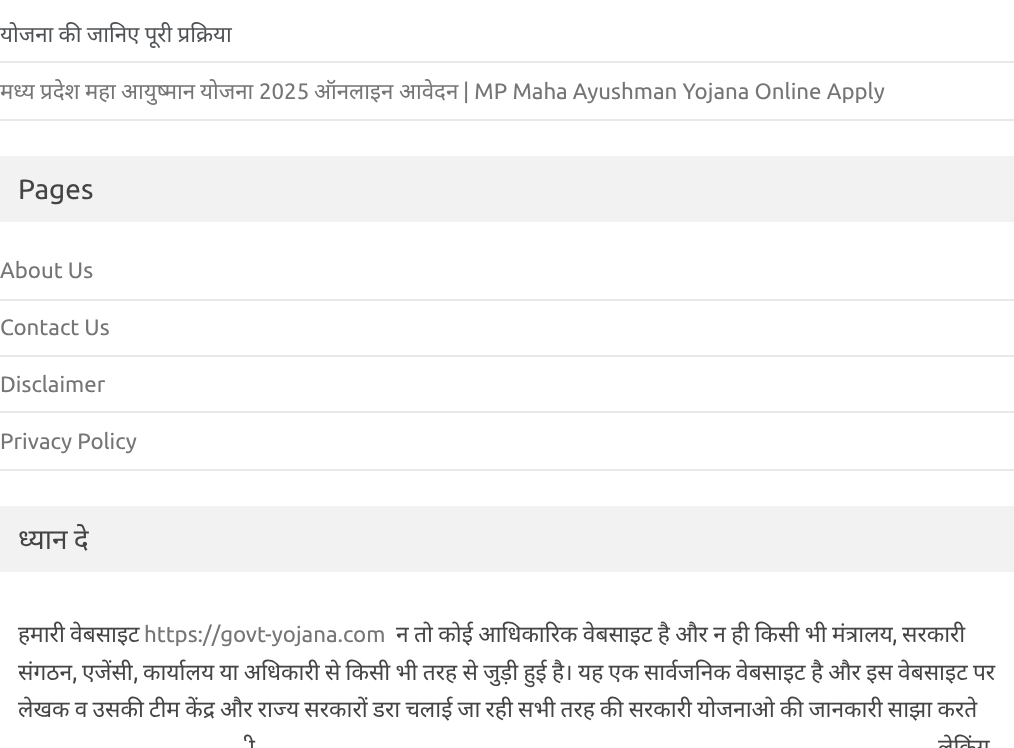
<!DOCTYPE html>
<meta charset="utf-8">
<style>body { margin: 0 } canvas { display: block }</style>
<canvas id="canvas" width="1014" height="748"></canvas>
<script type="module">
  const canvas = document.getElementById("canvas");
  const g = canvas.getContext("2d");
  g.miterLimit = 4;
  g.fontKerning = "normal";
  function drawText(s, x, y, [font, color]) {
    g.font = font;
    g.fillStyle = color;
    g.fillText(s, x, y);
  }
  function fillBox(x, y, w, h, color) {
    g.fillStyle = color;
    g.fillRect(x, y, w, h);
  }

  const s1 = ["22.25px Noto Sans", "#4F5254"];
  const s2 = ["22.25px Noto Sans", "#757575"];
  const s3 = ["22.25px Ubuntu", "#757575"];
  const s4 = ["28px Ubuntu", "#444444"];
  const s5 = ["28px Noto Sans", "#444444"];
  const s6 = ["22.75px Noto Sans", "#444444"];
  const s7 = ["22.75px Ubuntu", "#444444"];

  fillBox(0, 0, 1014, 748, "#FFFFFF");
  fillBox(0, 61, 1014, 2, "#E9E9E9");
  g.wordSpacing = "-0.5px";
  drawText("योजना की जानिए पूरी प्रक्रिया", 0, 42, s1);
  fillBox(0, 119, 1014, 2, "#E9E9E9");
  g.wordSpacing = "0px";
  drawText("मध्य", 0, 99, s2);
  drawText("प्रदेश", 40, 99, s2);
  drawText("महा", 85, 99, s2);
  drawText("आयुष्मान", 121, 99, s2);
  drawText("योजना", 200, 99, s2);
  drawText("2025", 259, 99, s3);
  drawText("ऑनलाइन", 314, 99, s2);
  drawText("आवेदन", 399, 99, s2);
  drawText("| MP Maha Ayushman Yojana Online Apply", 463, 99, s3);
  fillBox(0, 156, 1014, 66, "#F2F2F2");
  drawText("Pages", 18, 199, s4);
  fillBox(0, 299, 1014, 2, "#E9E9E9");
  drawText("About Us", 0, 278, s3);
  fillBox(0, 355, 1014, 2, "#E9E9E9");
  drawText("Contact Us", 0, 335, s3);
  fillBox(0, 411, 1014, 2, "#E9E9E9");
  drawText("Disclaimer", 0, 392, s3);
  fillBox(0, 469, 1014, 2, "#E9E9E9");
  drawText("Privacy Policy", 0, 449, s3);
  fillBox(0, 506, 1014, 66, "#F2F2F2");
  g.wordSpacing = "-1px";
  drawText("ध्यान दे", 18, 549, s5);
  g.wordSpacing = "-0.7px";
  drawText("हमारी वेबसाइट", 18, 642, s6);
  g.wordSpacing = "0px";
  drawText("https://govt-yojana.com", 144, 642, s3);
  g.wordSpacing = "-0.5px";
  drawText("न तो कोई आधिकारिक वेबसाइट है और न ही किसी भी मंत्रालय", 396, 642, s6);
  g.wordSpacing = "0px";
  drawText(",", 892, 642, s7);
  drawText("सरकारी", 902, 642, s6);
  drawText("संगठन", 18, 680, s6);
  drawText(",", 72, 680, s7);
  drawText("एजेंसी", 82, 680, s6);
  drawText(",", 133, 680, s7);
  g.wordSpacing = "-0.6px";
  drawText("कार्यालय या अधिकारी से किसी भी तरह से जुड़ी हुई है। यह एक सार्वजनिक वेबसाइट है और इस वेबसाइट पर", 143, 680, s6);
  g.wordSpacing = "-0.7px";
  drawText("लेखक व उसकी टीम केंद्र और राज्य सरकारों डरा चलाई जा रही सभी तरह की सरकारी योजनाओ की जानकारी साझा करते", 18, 717, s6);
  g.wordSpacing = "-1px";
  drawText("ी", 249, 755, s6);
  g.wordSpacing = "0px";
  drawText("लेकिंग", 938, 755, s6);
</script>
